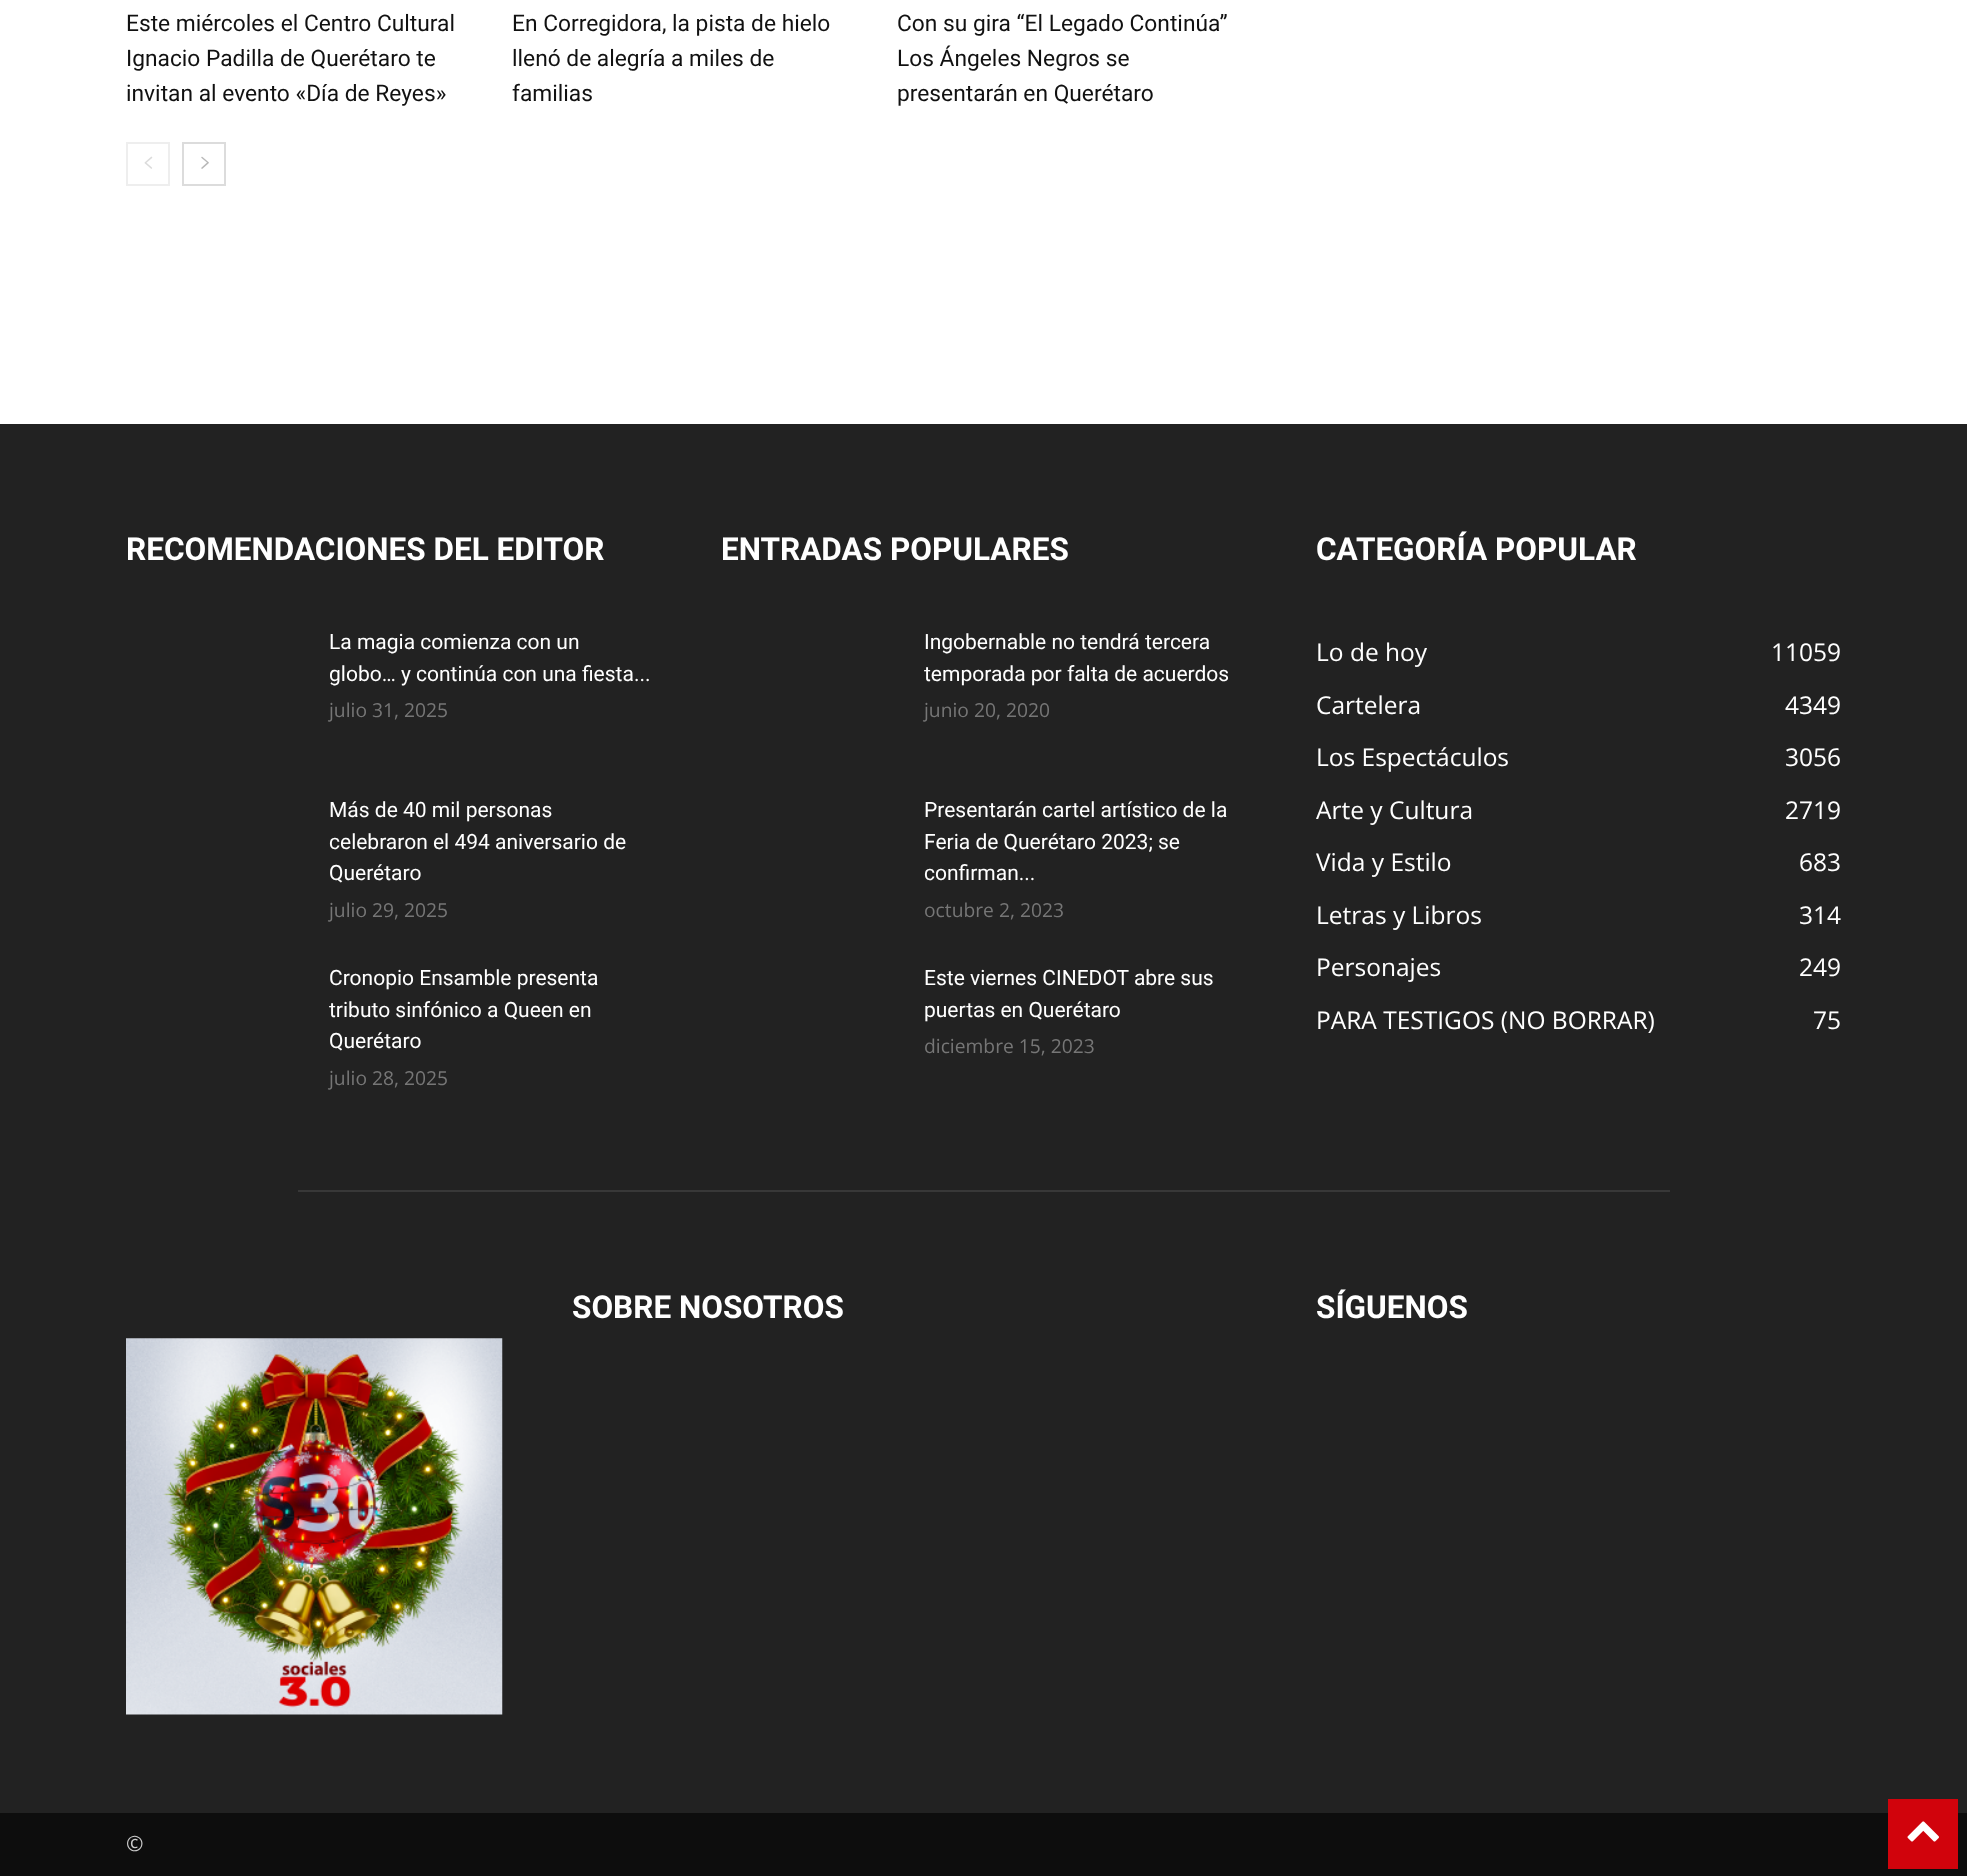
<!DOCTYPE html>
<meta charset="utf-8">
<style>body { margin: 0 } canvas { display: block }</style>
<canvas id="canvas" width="1967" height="1876"></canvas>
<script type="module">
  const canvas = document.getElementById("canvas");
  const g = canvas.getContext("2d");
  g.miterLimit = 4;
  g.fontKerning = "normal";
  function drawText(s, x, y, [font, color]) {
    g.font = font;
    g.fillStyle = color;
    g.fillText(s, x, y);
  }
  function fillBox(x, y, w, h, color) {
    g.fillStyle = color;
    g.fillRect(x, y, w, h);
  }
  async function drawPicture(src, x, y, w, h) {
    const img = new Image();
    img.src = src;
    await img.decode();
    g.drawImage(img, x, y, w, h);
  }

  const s1 = ["22.75px Roboto", "#111111"];
  const s2 = ["bold 31.5px Roboto", "#FFFFFF"];
  const s3 = ["21px Roboto", "#FFFFFF"];
  const s4 = ["19.25px Open Sans", "#767676"];
  const s5 = ["24.5px Open Sans", "#FFFFFF"];
  const s6 = ["21px Open Sans", "#CCCCCC"];

  fillBox(0, 0, 1967, 1876, "#FFFFFF");
  drawText("Este miércoles el Centro Cultural", 126, 31, s1);
  drawText("Ignacio Padilla de Querétaro te", 126, 66, s1);
  drawText("invitan al evento «Día de Reyes»", 126, 101, s1);
  drawText("En Corregidora, la pista de hielo", 512, 31, s1);
  drawText("llenó de alegría a miles de", 512, 66, s1);
  drawText("familias", 512, 101, s1);
  drawText("Con su gira “El Legado Continúa”", 897, 31, s1);
  drawText("Los Ángeles Negros se", 897, 66, s1);
  drawText("presentarán en Querétaro", 897, 101, s1);
  g.strokeStyle = "#EEEEEE";
  g.lineWidth = 2;
  g.strokeRect(127, 143, 42, 42);
  await drawPicture("pic1.png", 144, 156, 9, 13);
  g.strokeStyle = "#DCDCDC";
  g.strokeRect(183, 143, 42, 42);
  await drawPicture("pic2.png", 201, 156, 8, 13);
  fillBox(0, 424, 1967, 1389, "#222222");
  drawText("RECOMENDACIONES DEL EDITOR", 126, 560, s2);
  drawText("La magia comienza con un", 329, 649, s3);
  drawText("globo… y continúa con una fiesta...", 329, 681, s3);
  drawText("julio 31, 2025", 329, 717, s4);
  drawText("Más de 40 mil personas", 329, 817, s3);
  drawText("celebraron el 494 aniversario de", 329, 849, s3);
  drawText("Querétaro", 329, 880, s3);
  drawText("julio 29, 2025", 329, 917, s4);
  drawText("Cronopio Ensamble presenta", 329, 985, s3);
  drawText("tributo sinfónico a Queen en", 329, 1017, s3);
  drawText("Querétaro", 329, 1048, s3);
  drawText("julio 28, 2025", 329, 1085, s4);
  drawText("ENTRADAS POPULARES", 721, 560, s2);
  drawText("Ingobernable no tendrá tercera", 924, 649, s3);
  drawText("temporada por falta de acuerdos", 924, 681, s3);
  drawText("junio 20, 2020", 924, 717, s4);
  drawText("Presentarán cartel artístico de la", 924, 817, s3);
  drawText("Feria de Querétaro 2023; se", 924, 849, s3);
  drawText("confirman...", 924, 880, s3);
  drawText("octubre 2, 2023", 924, 917, s4);
  drawText("Este viernes CINEDOT abre sus", 924, 985, s3);
  drawText("puertas en Querétaro", 924, 1017, s3);
  drawText("diciembre 15, 2023", 924, 1053, s4);
  drawText("CATEGORÍA POPULAR", 1316, 560, s2);
  drawText("Lo de hoy", 1316, 661, s5);
  drawText("11059", 1771, 661, s5);
  drawText("Cartelera", 1316, 714, s5);
  drawText("4349", 1785, 714, s5);
  drawText("Los Espectáculos", 1316, 766, s5);
  drawText("3056", 1785, 766, s5);
  drawText("Arte y Cultura", 1316, 819, s5);
  drawText("2719", 1785, 819, s5);
  drawText("Vida y Estilo", 1316, 871, s5);
  drawText("683", 1799, 871, s5);
  drawText("Letras y Libros", 1316, 924, s5);
  drawText("314", 1799, 924, s5);
  drawText("Personajes", 1316, 976, s5);
  drawText("249", 1799, 976, s5);
  drawText("PARA TESTIGOS (NO BORRAR)", 1316, 1029, s5);
  drawText("75", 1813, 1029, s5);
  fillBox(298, 1190, 1372, 2, "#383838");
  drawText("SOBRE NOSOTROS", 572, 1318, s2);
  drawText("SÍGUENOS", 1316, 1318, s2);
  await drawPicture("pic3.png", 126, 1338, 377, 377);
  fillBox(0, 1813, 1967, 63, "#0D0D0D");
  drawText("©", 126, 1851, s6);
  fillBox(1888, 1799, 70, 70, "#D1030C");
  await drawPicture("pic4.png", 1907, 1821, 32, 21);
</script>
